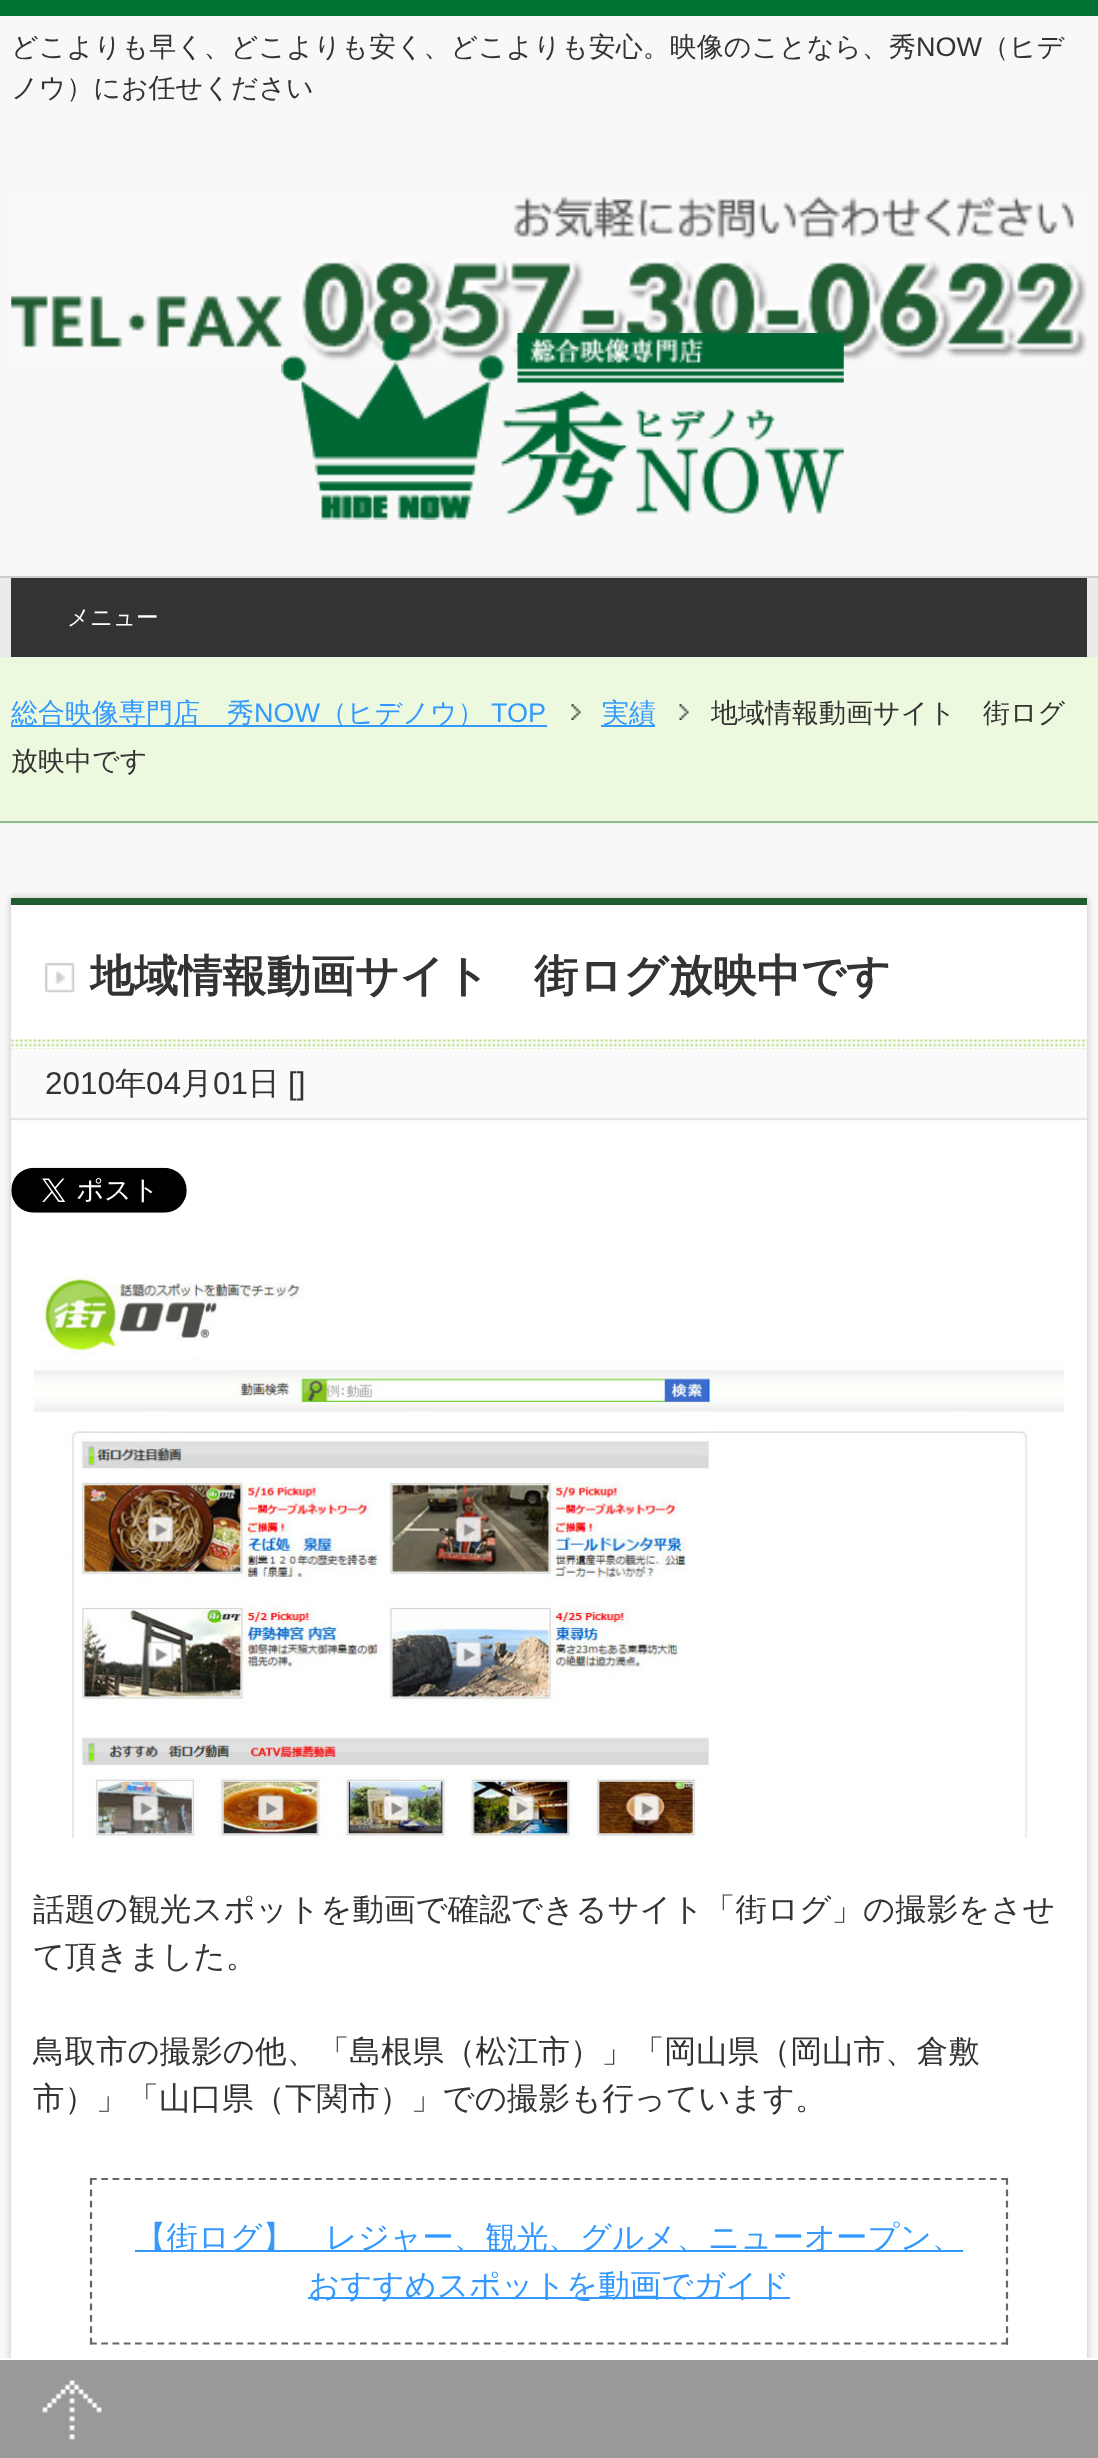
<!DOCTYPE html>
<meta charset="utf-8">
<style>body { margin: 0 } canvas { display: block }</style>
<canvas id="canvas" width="1098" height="2458"></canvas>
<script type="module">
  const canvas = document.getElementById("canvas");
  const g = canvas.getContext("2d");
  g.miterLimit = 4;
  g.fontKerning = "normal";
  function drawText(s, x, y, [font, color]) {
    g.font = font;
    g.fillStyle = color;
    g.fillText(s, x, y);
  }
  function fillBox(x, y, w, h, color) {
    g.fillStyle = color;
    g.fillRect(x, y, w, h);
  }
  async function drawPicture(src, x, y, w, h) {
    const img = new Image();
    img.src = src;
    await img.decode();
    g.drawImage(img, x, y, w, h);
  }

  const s1 = ["500 27px WenQuanYi Zen Hei", "#333333"];
  const s2 = ["27px Liberation Sans", "#333333"];
  const s3 = ["500 22.5px WenQuanYi Zen Hei", "#FFFFFF"];
  const s4 = ["500 27px WenQuanYi Zen Hei", "#3399FF"];
  const s5 = ["27px Liberation Sans", "#3399FF"];
  const s6 = ["bold 44.1px WenQuanYi Zen Hei", "#333333"];
  const s7 = ["31.5px Liberation Sans", "#333333"];
  const s8 = ["500 31.5px WenQuanYi Zen Hei", "#333333"];
  const s9 = ["500 31.5px WenQuanYi Zen Hei", "#3399FF"];

  fillBox(0, 0, 1098, 2458, "#F8F8F8");
  fillBox(0, 0, 1098, 16, "#007130");
  await drawPicture("pic1.png", 11, 196, 1076, 165);
  drawText("どこよりも早く、どこよりも安く、どこよりも安心。映像のことなら、秀", 11, 56, s1);
  drawText("NOW", 916, 56, s2);
  drawText("（ヒデ", 982, 56, s1);
  drawText("ノウ）にお任せください", 11, 97, s1);
  await drawPicture("pic2.png", 281, 333, 563, 187);
  fillBox(0, 578, 1098, 79, "#EBEBEB");
  fillBox(0, 576, 1098, 2, "#CCCCCC");
  fillBox(11, 578, 1076, 79, "#333333");
  drawText("メニュー", 67, 625, s3);
  fillBox(0, 657, 1098, 167, "#ECF9DF");
  fillBox(0, 821, 1098, 2, "#8FBC8F");
  fillBox(11, 725, 536, 2, "#3399FF");
  drawText("総合映像専門店　秀", 11, 722, s4);
  drawText("NOW", 254, 722, s5);
  drawText("（ヒデノウ）", 320, 722, s4);
  drawText("TOP", 491, 722, s5);
  await drawPicture("pic3.png", 571, 704, 10, 16);
  fillBox(601, 725, 54, 2, "#3399FF");
  drawText("実績", 602, 722, s4);
  await drawPicture("pic3.png", 679, 704, 10, 16);
  drawText("地域情報動画サイト　街ログ", 711, 722, s1);
  drawText("放映中です", 11, 770, s1);
  g.fillStyle = "#C0C0C0";
  g.filter = "blur(3.5px)";
  g.beginPath();
  g.rect(11, 898, 1076, 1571);
  g.fill();
  g.filter = "none";
  fillBox(11, 905, 1076, 1453, "#FFFFFF");
  await drawPicture("pic4.png", 11, 963, 1076, 86);
  fillBox(11, 898, 1076, 7, "#215B32");
  drawText("地域情報動画サイト　街ログ放映中です", 90, 991, s6);
  fillBox(11, 1049, 1076, 72, "#FAFAFA");
  fillBox(11, 1118, 1076, 2, "#E5E5E5");
  drawText("2010", 45, 1094, s7);
  drawText("年", 115, 1094, s8);
  drawText("04", 146, 1094, s7);
  drawText("月", 181, 1094, s8);
  drawText("01", 213, 1094, s7);
  drawText("日", 248, 1094, s8);
  drawText("[]", 288, 1094, s7);
  await drawPicture("pic5.png", 11, 1167, 176, 46);
  await drawPicture("pic6.png", 33, 1276, 1032, 563);
  drawText("話題の観光スポットを動画で確認できるサイト「街ログ」の撮影をさせ", 33, 1920, s8);
  drawText("て頂きました。", 33, 1967, s8);
  drawText("鳥取市の撮影の他、「島根県（松江市）」「岡山県（岡山市、倉敷", 33, 2062, s8);
  drawText("市）」「山口県（下関市）」での撮影も行っています。", 33, 2109, s8);
  g.beginPath();
  g.moveTo(90, 2179);
  g.lineTo(1008, 2179);
  g.strokeStyle = "#666666";
  g.lineWidth = 2.2;
  g.setLineDash([6.75, 4.5]);
  g.stroke();
  g.beginPath();
  g.moveTo(1007, 2178);
  g.lineTo(1007, 2344.5);
  g.setLineDash([6.75, 4.66]);
  g.stroke();
  g.beginPath();
  g.moveTo(90, 2343.5);
  g.lineTo(1008, 2343.5);
  g.setLineDash([6.75, 4.5]);
  g.stroke();
  g.beginPath();
  g.moveTo(91, 2178);
  g.lineTo(91, 2344.5);
  g.setLineDash([6.75, 4.66]);
  g.stroke();
  fillBox(135, 2250, 828, 2, "#3399FF");
  drawText("【街ログ】　レジャー、観光、グルメ、ニューオープン、", 135, 2248, s9);
  fillBox(308, 2297, 482, 2, "#3399FF");
  drawText("おすすめスポットを動画でガイド", 308, 2296, s9);
  fillBox(0, 2360, 1098, 98, "#999999");
  await drawPicture("pic7.png", 42, 2380, 60, 60);
  fillBox(0, 2358, 1098, 2, "#FFFFFF");
</script>
